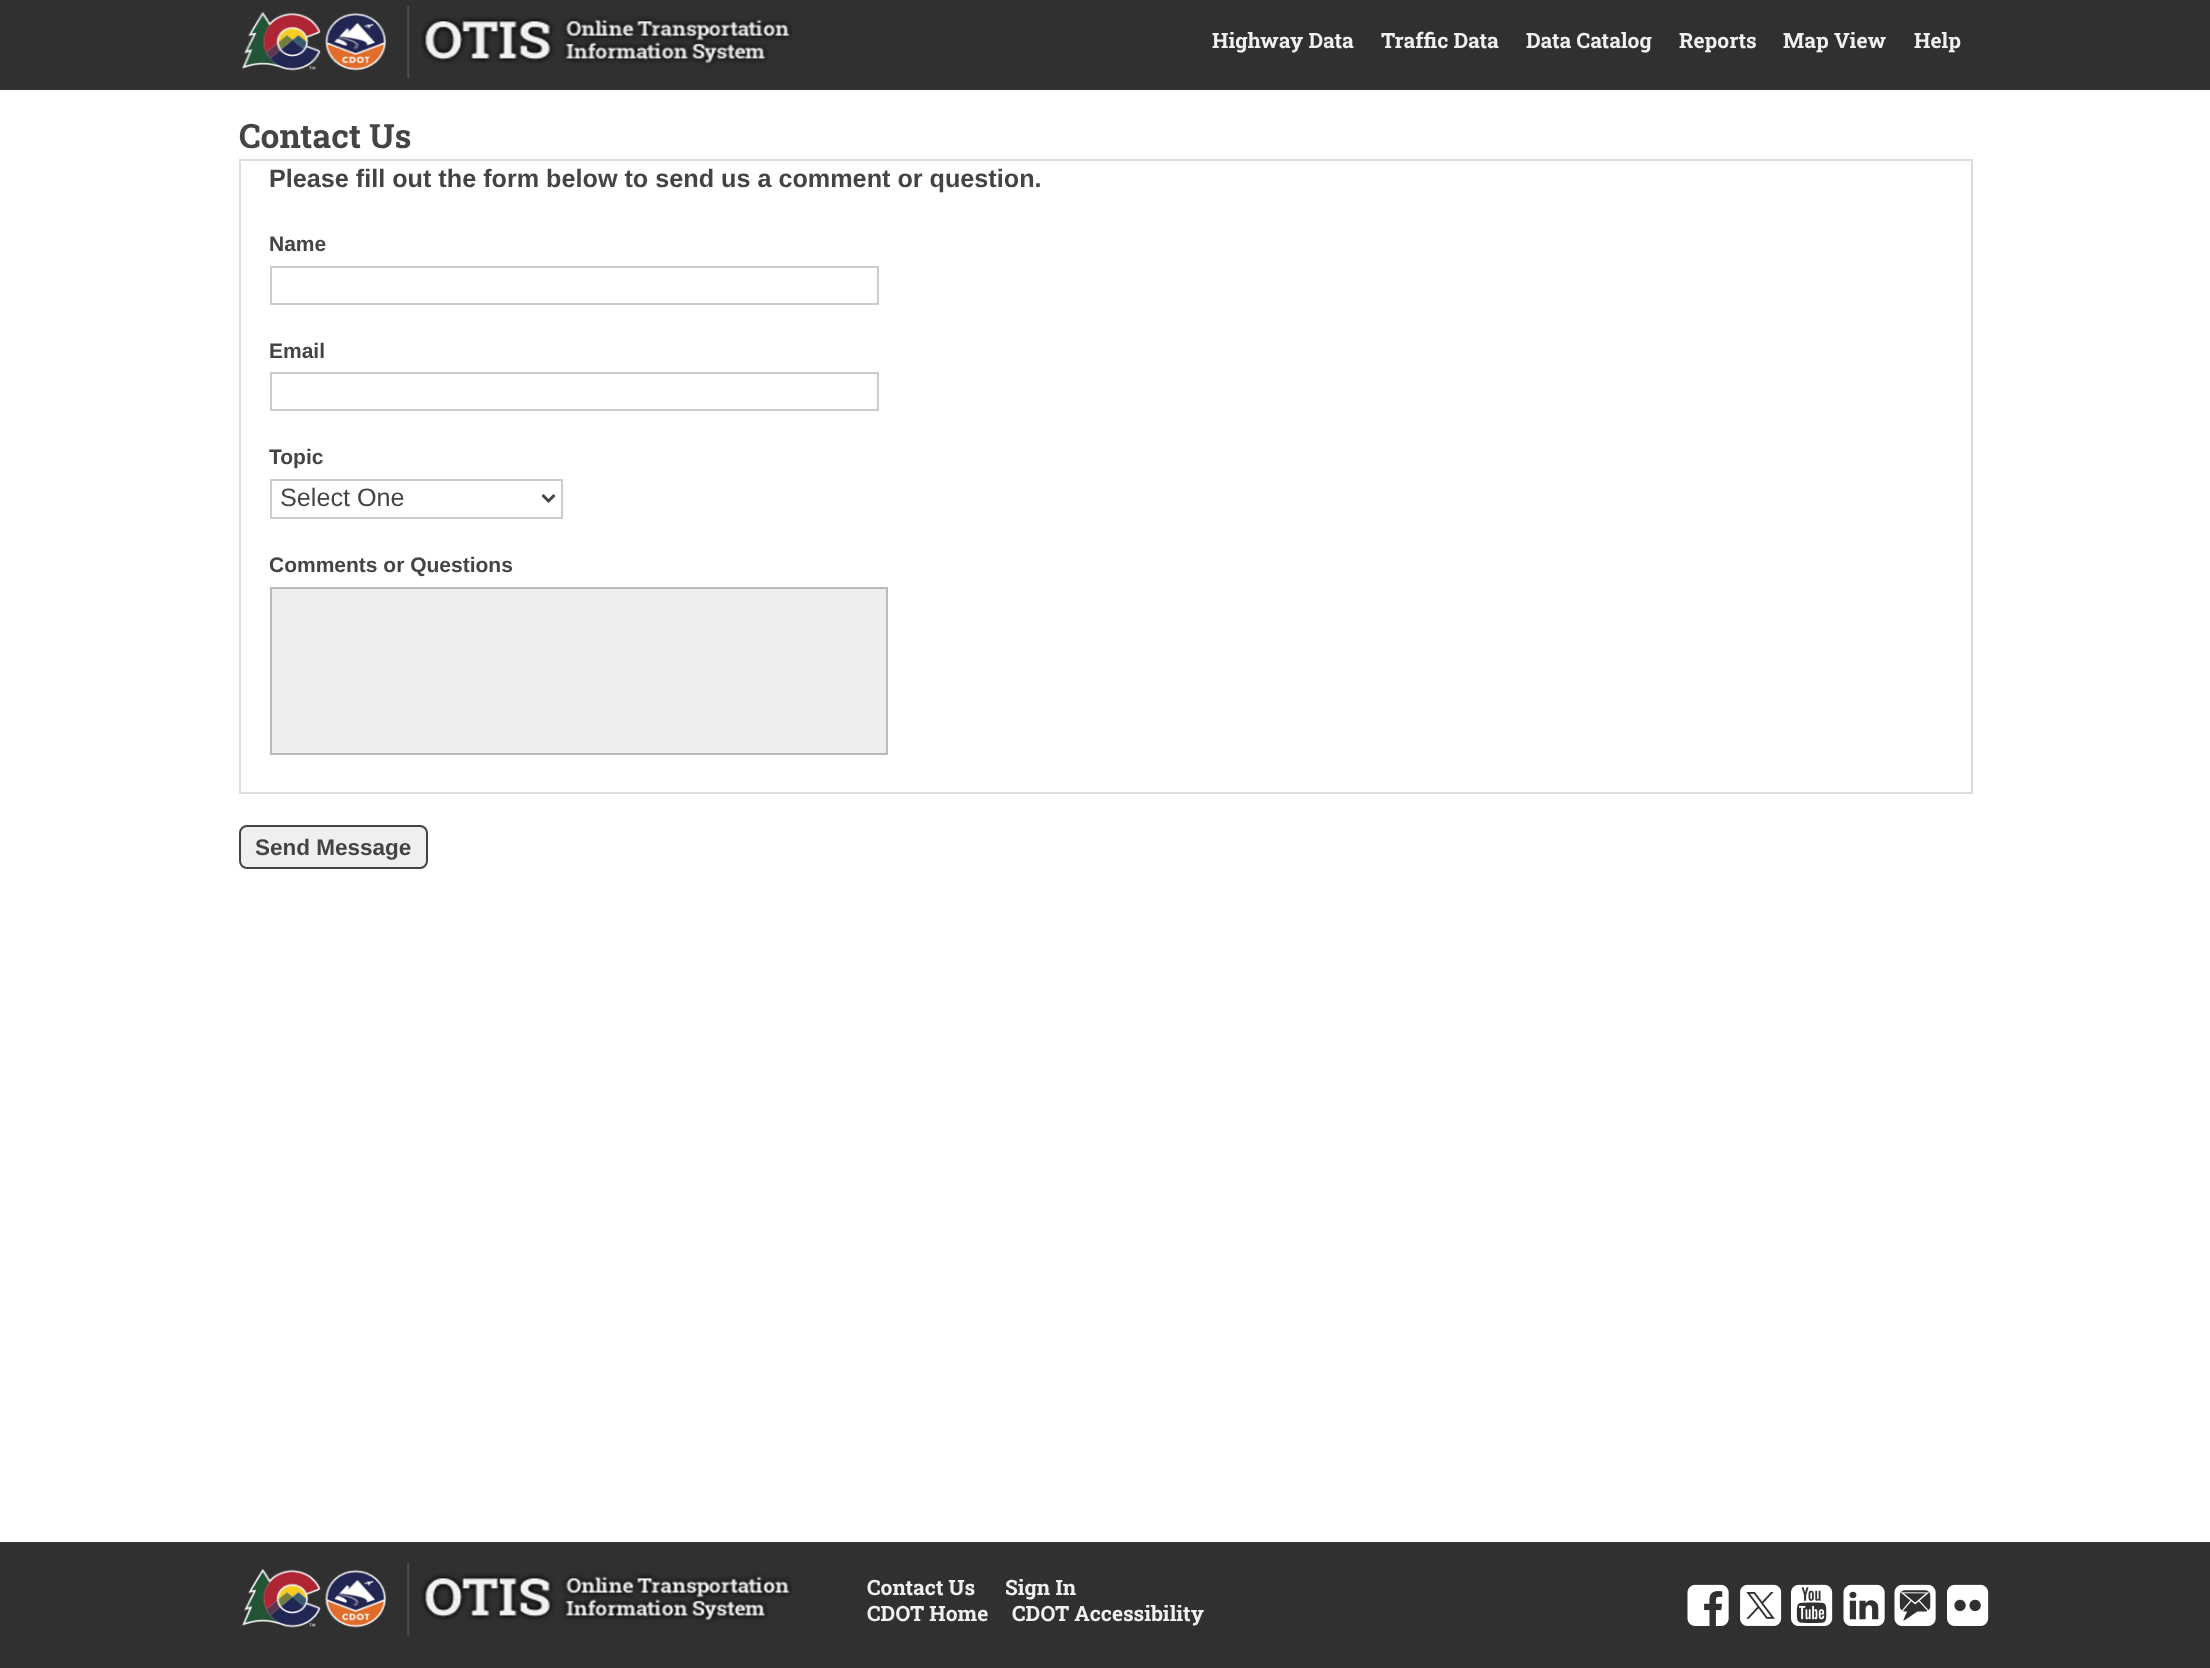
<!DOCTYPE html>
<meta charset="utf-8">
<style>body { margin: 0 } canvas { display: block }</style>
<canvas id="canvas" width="2210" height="1668"></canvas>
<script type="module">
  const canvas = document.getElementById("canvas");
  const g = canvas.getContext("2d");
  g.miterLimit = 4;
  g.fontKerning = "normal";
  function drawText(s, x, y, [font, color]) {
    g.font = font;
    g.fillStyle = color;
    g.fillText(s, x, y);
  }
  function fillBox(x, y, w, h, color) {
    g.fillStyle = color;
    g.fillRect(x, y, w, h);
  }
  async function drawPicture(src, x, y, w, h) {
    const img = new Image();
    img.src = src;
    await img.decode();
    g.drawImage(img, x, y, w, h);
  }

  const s1 = ["bold 21px Roboto Slab", "#F0F0F0"];
  const s2 = ["bold 33.5px Roboto Slab", "#444444"];
  const s3 = ["bold 25.2px Liberation Sans", "#444444"];
  const s4 = ["bold 21px Liberation Sans", "#444444"];
  const s5 = ["25.2px Liberation Sans", "#444444"];
  const s6 = ["bold 22.5px Liberation Sans", "#444444"];

  fillBox(0, 0, 2210, 1668, "#FFFFFF");
  fillBox(0, 0, 2210, 90, "#303030");
  await drawPicture("pic1.png", 241, 5, 551, 74);
  drawText("Highway Data", 1212, 48, s1);
  drawText("Traffic Data", 1381, 48, s1);
  drawText("Data Catalog", 1526, 48, s1);
  drawText("Reports", 1679, 48, s1);
  drawText("Map View", 1783, 48, s1);
  drawText("Help", 1914, 48, s1);
  drawText("Contact Us", 239, 148, s2);
  g.strokeStyle = "#DDDDDD";
  g.lineWidth = 2;
  g.strokeRect(240, 160, 1732, 633);
  drawText("Please fill out the form below to send us a comment or question.", 269, 187, s3);
  drawText("Name", 269, 251, s4);
  g.strokeStyle = "#CCCCCC";
  g.strokeRect(271, 267, 607, 37);
  drawText("Email", 269, 358, s4);
  g.strokeRect(271, 373, 607, 37);
  drawText("Topic", 269, 464, s4);
  g.strokeRect(271, 480, 291, 38);
  g.beginPath();
  g.moveTo(542.5, 495);
  g.lineTo(548.5, 501);
  g.lineTo(554.5, 495);
  g.strokeStyle = "#444444";
  g.lineWidth = 3;
  g.stroke();
  drawText("Select One", 280, 506, s5);
  drawText("Comments or Questions", 269, 572, s4);
  g.fillStyle = "#EEEEEE";
  g.beginPath();
  g.rect(271, 588, 616, 166);
  g.fill();
  g.strokeStyle = "#BBBBBB";
  g.lineWidth = 2;
  g.stroke();
  g.fillStyle = "#EFEFEF";
  g.beginPath();
  g.roundRect(240, 826, 187, 42, 7);
  g.fill();
  g.strokeStyle = "#444444";
  g.stroke();
  drawText("Send Message", 255, 855, s6);
  fillBox(0, 1542, 2210, 126, "#303030");
  await drawPicture("pic2.png", 241, 1562, 551, 74);
  drawText("Contact Us", 867, 1595, s1);
  drawText("Sign In", 1005, 1595, s1);
  drawText("CDOT Home", 867, 1621, s1);
  drawText("CDOT Accessibility", 1012, 1621, s1);
  await drawPicture("pic3.png", 1687, 1584, 42, 42);
  await drawPicture("pic4.png", 1740, 1584, 42, 42);
  await drawPicture("pic5.png", 1791, 1584, 42, 42);
  await drawPicture("pic6.png", 1843, 1584, 42, 42);
  await drawPicture("pic7.png", 1894, 1584, 42, 42);
  await drawPicture("pic8.png", 1947, 1584, 42, 42);
</script>
